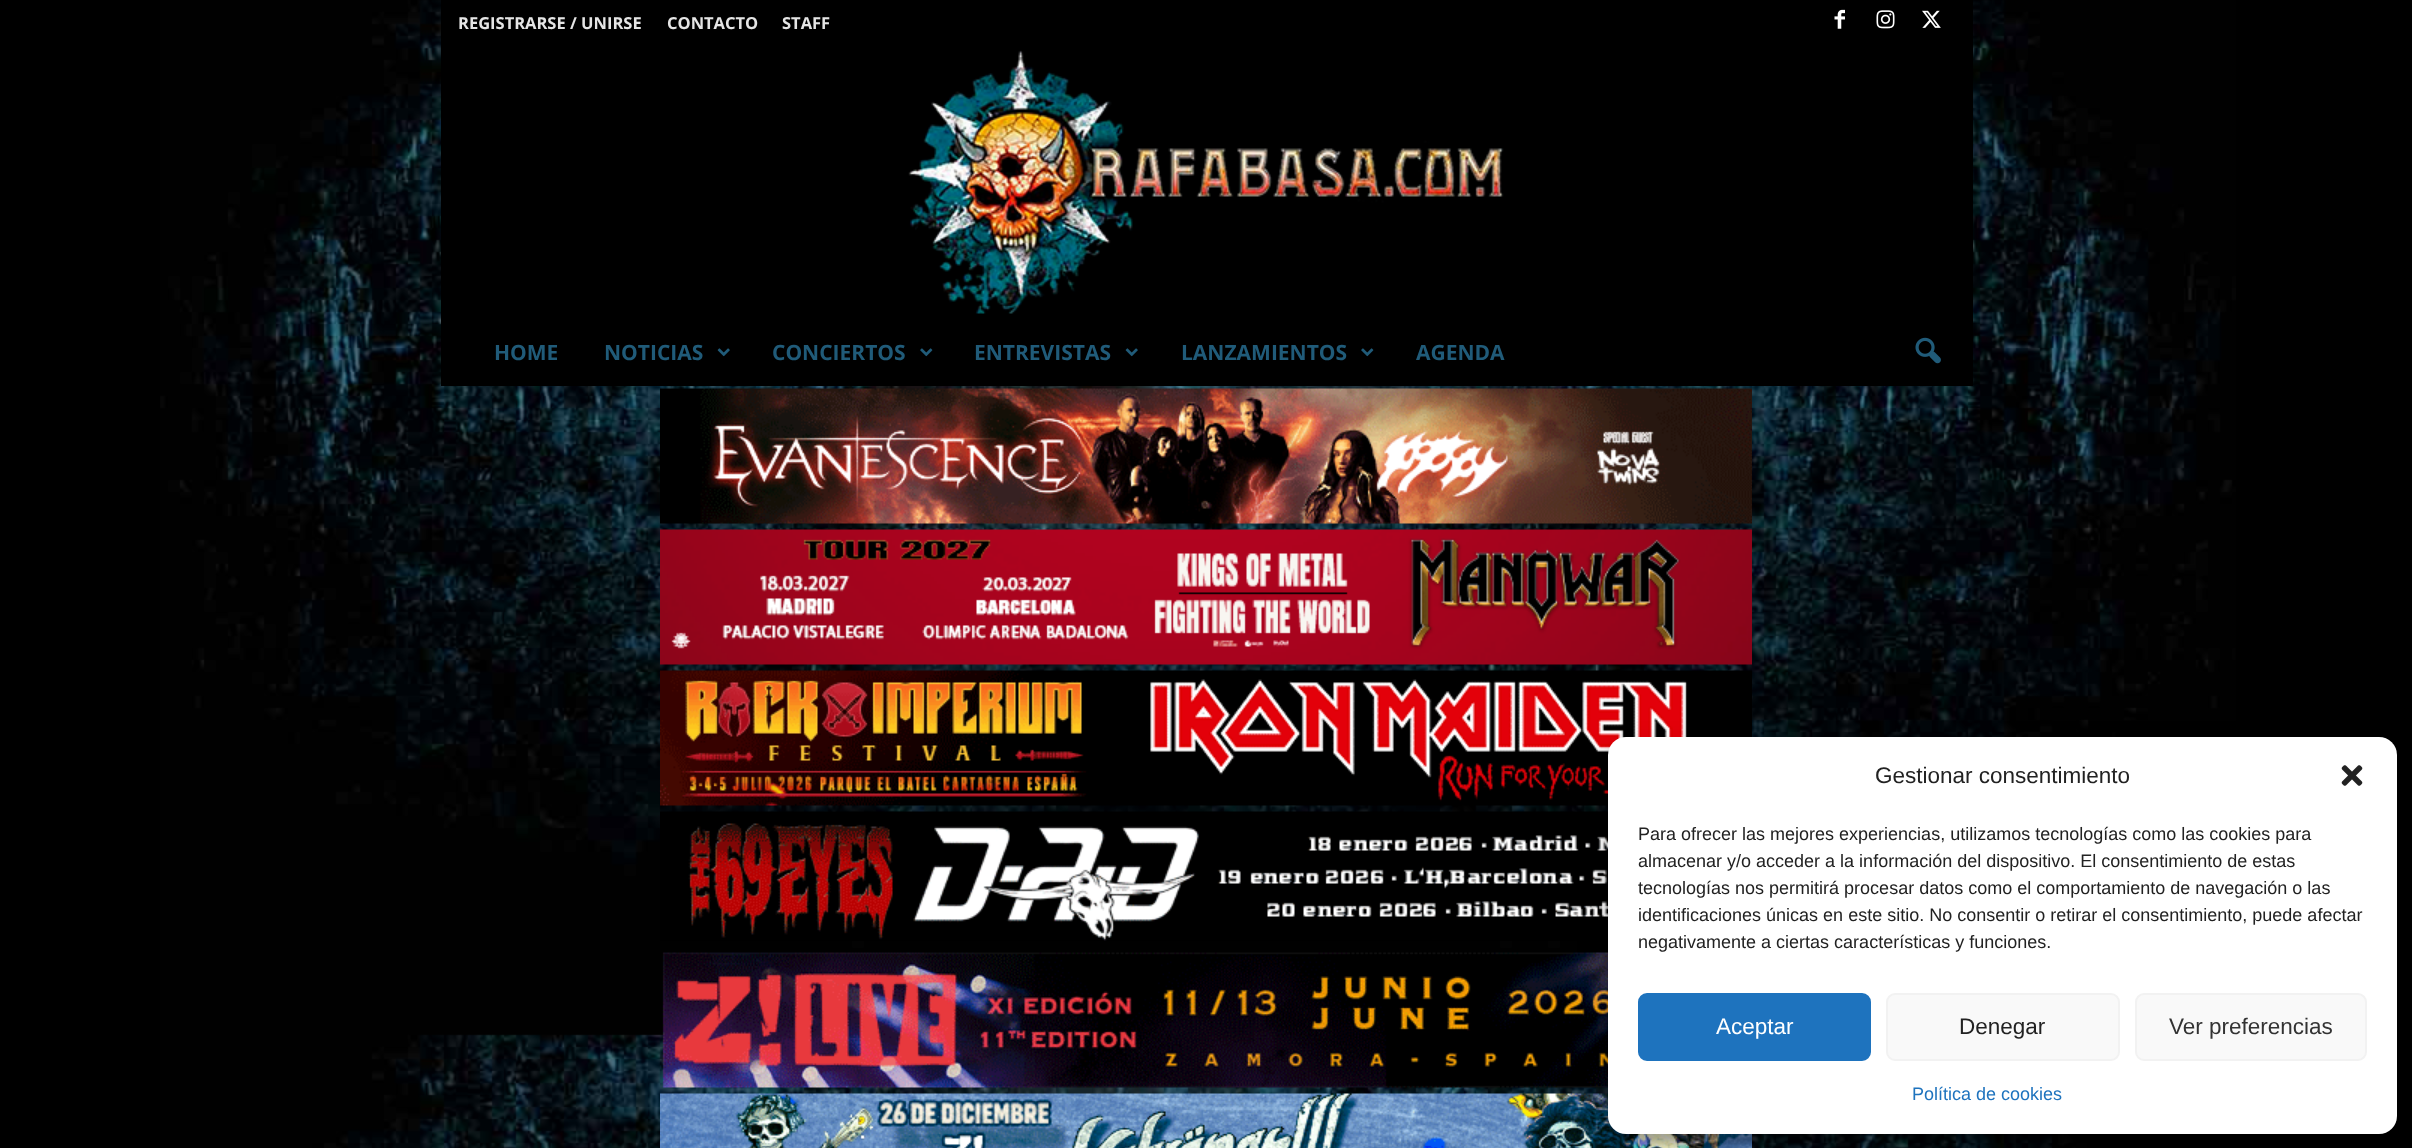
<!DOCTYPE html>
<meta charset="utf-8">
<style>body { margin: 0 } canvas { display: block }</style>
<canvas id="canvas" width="2412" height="1148"></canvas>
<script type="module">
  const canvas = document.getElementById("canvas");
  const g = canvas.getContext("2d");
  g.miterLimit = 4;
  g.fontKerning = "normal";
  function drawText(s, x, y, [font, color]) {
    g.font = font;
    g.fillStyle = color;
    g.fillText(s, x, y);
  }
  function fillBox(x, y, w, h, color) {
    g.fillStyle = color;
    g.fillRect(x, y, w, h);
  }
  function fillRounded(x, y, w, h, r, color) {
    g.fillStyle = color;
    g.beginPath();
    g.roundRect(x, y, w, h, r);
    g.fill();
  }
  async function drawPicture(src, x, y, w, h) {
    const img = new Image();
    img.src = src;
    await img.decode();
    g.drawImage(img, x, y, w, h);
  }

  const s1 = ["bold 16.5px Open Sans", "#E5E5E5"];
  const s2 = ["bold 21px Open Sans", "#205B79"];
  const s3 = ["22.5px Liberation Sans", "#222222"];
  const s4 = ["18px Liberation Sans", "#222222"];
  const s5 = ["22.5px Liberation Sans", "#FFFFFF"];
  const s6 = ["22.5px Liberation Sans", "#333333"];
  const s7 = ["18px Liberation Sans", "#1E73BE"];

  fillBox(0, 0, 2412, 1148, "#000000");
  await drawPicture("pic1.png", 160, 0, 2076, 1148);
  fillBox(441, 0, 1532, 386, "#000000");
  drawText("REGISTRARSE / UNIRSE", 458, 29, s1);
  drawText("CONTACTO", 667, 29, s1);
  drawText("STAFF", 782, 29, s1);
  await drawPicture("pic2.png", 1834, 9, 11, 20);
  await drawPicture("pic3.png", 1876, 10, 19, 19);
  await drawPicture("pic4.png", 1922, 10, 19, 18);
  await drawPicture("pic5.png", 908, 50, 596, 264);
  drawText("HOME", 494, 360, s2);
  drawText("NOTICIAS", 604, 360, s2);
  await drawPicture("pic6.png", 717, 348, 13, 9);
  drawText("CONCIERTOS", 772, 360, s2);
  await drawPicture("pic7.png", 920, 348, 13, 9);
  drawText("ENTREVISTAS", 974, 360, s2);
  await drawPicture("pic6.png", 1125, 348, 13, 9);
  drawText("LANZAMIENTOS", 1181, 360, s2);
  await drawPicture("pic7.png", 1361, 348, 13, 9);
  drawText("AGENDA", 1416, 360, s2);
  await drawPicture("pic8.png", 1915, 337, 26, 27);
  await drawPicture("pic9.png", 660, 388, 1092, 136);
  await drawPicture("pic10.png", 660, 529, 1092, 136);
  await drawPicture("pic11.png", 660, 670, 1092, 136);
  await drawPicture("pic12.png", 660, 811, 948, 130);
  await drawPicture("pic13.png", 662, 952, 946, 136);
  await drawPicture("pic14.png", 660, 1093, 1092, 55);
  g.fillStyle = "rgba(0, 0, 0, 0.23)";
  g.filter = "blur(4.5px)";
  g.beginPath();
  g.roundRect(1608, 746, 789, 397, 18);
  g.fill();
  g.filter = "none";
  g.fillStyle = "rgba(0, 0, 0, 0.19)";
  g.filter = "blur(15px)";
  g.beginPath();
  g.roundRect(1608, 752, 789, 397, 18);
  g.fill();
  g.filter = "none";
  fillRounded(1608, 737, 789, 397, 18, "#FFFFFF");
  drawText("Gestionar consentimiento", 1875, 783, s3);
  await drawPicture("pic15.png", 2341, 765, 22, 21);
  drawText("Para ofrecer las mejores experiencias, utilizamos tecnologías como las cookies para", 1638, 840, s4);
  drawText("almacenar y/o acceder a la información del dispositivo. El consentimiento de estas", 1638, 867, s4);
  drawText("tecnologías nos permitirá procesar datos como el comportamiento de navegación o las", 1638, 894, s4);
  drawText("identificaciones únicas en este sitio. No consentir o retirar el consentimiento, puede afectar", 1638, 921, s4);
  drawText("negativamente a ciertas características y funciones.", 1638, 948, s4);
  g.fillStyle = "#1E73BE";
  g.beginPath();
  g.roundRect(1639, 994, 231, 66, 8);
  g.fill();
  g.strokeStyle = "#1E73BE";
  g.lineWidth = 2;
  g.stroke();
  drawText("Aceptar", 1716, 1034, s5);
  g.fillStyle = "#F9F9F9";
  g.beginPath();
  g.roundRect(1887, 994, 232, 66, 8);
  g.fill();
  g.strokeStyle = "#F2F2F2";
  g.stroke();
  drawText("Denegar", 1959, 1034, s3);
  g.fillStyle = "#F9F9F9";
  g.beginPath();
  g.roundRect(2136, 994, 230, 66, 8);
  g.fill();
  g.stroke();
  drawText("Ver preferencias", 2169, 1034, s6);
  drawText("Política de cookies", 1912, 1100, s7);
</script>
